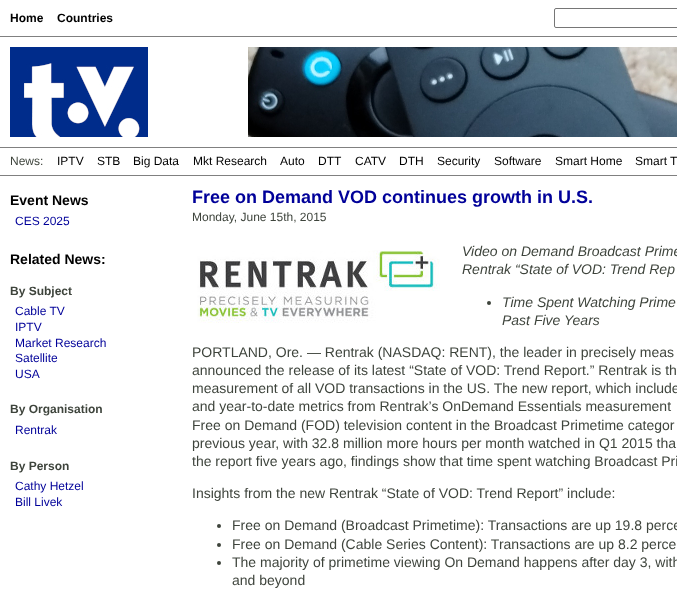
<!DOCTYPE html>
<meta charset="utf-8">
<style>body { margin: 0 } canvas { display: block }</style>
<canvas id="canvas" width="677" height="594"></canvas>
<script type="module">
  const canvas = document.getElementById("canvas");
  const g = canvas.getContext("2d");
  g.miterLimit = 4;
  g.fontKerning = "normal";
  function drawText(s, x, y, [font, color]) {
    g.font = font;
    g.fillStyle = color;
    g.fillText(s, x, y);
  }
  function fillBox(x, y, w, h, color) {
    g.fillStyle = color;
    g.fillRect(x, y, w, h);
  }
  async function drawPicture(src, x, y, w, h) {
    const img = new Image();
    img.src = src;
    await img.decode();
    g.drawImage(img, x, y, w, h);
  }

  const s1 = ["bold 12px Liberation Sans", "#000000"];
  const s2 = ["12px Liberation Sans", "#3E443C"];
  const s3 = ["12px Liberation Sans", "#000000"];
  const s4 = ["bold 14px Liberation Sans", "#000000"];
  const s5 = ["12px Liberation Sans", "#000099"];
  const s6 = ["bold 12px Liberation Sans", "#3E443C"];
  const s7 = ["bold 18px Liberation Sans", "#000099"];
  const s8 = ["italic 14px Liberation Sans", "#3E443C"];
  const s9 = ["14px Liberation Sans", "#3E443C"];

  fillBox(0, 0, 677, 594, "#FFFFFF");
  fillBox(0, 36, 677, 1, "#808080");
  drawText("Home", 10, 22, s1);
  drawText("Countries", 57, 22, s1);
  g.beginPath();
  g.roundRect(554.5, 8.5, 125, 19, 1.5);
  g.strokeStyle = "#767676";
  g.stroke();
  await drawPicture("pic1.png", 10, 47, 138, 90);
  await drawPicture("pic2.png", 248, 47, 429, 90);
  fillBox(0, 147, 677, 1, "#808080");
  fillBox(0, 175, 677, 1, "#808080");
  drawText("News:", 10, 165, s2);
  drawText("IPTV", 57, 165, s3);
  drawText("STB", 97, 165, s3);
  drawText("Big Data", 133, 165, s3);
  drawText("Mkt Research", 193, 165, s3);
  drawText("Auto", 280, 165, s3);
  drawText("DTT", 318, 165, s3);
  drawText("CATV", 355, 165, s3);
  drawText("DTH", 399, 165, s3);
  drawText("Security", 437, 165, s3);
  drawText("Software", 494, 165, s3);
  drawText("Smart Home", 555, 165, s3);
  drawText("Smart T", 635, 165, s3);
  drawText("Event News", 10, 205, s4);
  drawText("CES 2025", 15, 225, s5);
  drawText("Related News:", 10, 264, s4);
  drawText("By Subject", 10, 295, s6);
  drawText("Cable TV", 15, 315, s5);
  drawText("IPTV", 15, 331, s5);
  drawText("Market Research", 15, 347, s5);
  drawText("Satellite", 15, 362, s5);
  drawText("USA", 15, 378, s5);
  drawText("By Organisation", 10, 413, s6);
  drawText("Rentrak", 15, 434, s5);
  drawText("By Person", 10, 470, s6);
  drawText("Cathy Hetzel", 15, 490, s5);
  drawText("Bill Livek", 15, 506, s5);
  drawText("Free on Demand VOD continues growth in U.S.", 192, 203, s7);
  drawText("Monday, June 15th, 2015", 192, 221, s2);
  drawText("Video on Demand Broadcast Prime", 462, 256, s8);
  drawText("Rentrak “State of VOD: Trend Rep", 462, 274, s8);
  g.beginPath();
  g.arc(489, 303, 2, 0, Math.PI * 2);
  g.fill();
  drawText("Time Spent Watching Prime", 502, 307, s8);
  drawText("Past Five Years", 502, 325, s8);
  drawText("PORTLAND, Ore. — Rentrak (NASDAQ: RENT), the leader in precisely meas", 192, 357, s9);
  drawText("announced the release of its latest “State of VOD: Trend Report.” Rentrak is th", 192, 375, s9);
  drawText("measurement of all VOD transactions in the US. The new report, which include", 192, 393, s9);
  drawText("and year-to-date metrics from Rentrak’s OnDemand Essentials measurement", 192, 411, s9);
  drawText("Free on Demand (FOD) television content in the Broadcast Primetime categor", 192, 430, s9);
  drawText("previous year, with 32.8 million more hours per month watched in Q1 2015 tha", 192, 448, s9);
  drawText("the report five years ago, findings show that time spent watching Broadcast Pri", 192, 466, s9);
  drawText("Insights from the new Rentrak “State of VOD: Trend Report” include:", 192, 498, s9);
  g.beginPath();
  g.arc(219, 526, 2, 0, Math.PI * 2);
  g.fill();
  drawText("Free on Demand (Broadcast Primetime): Transactions are up 19.8 perce", 232, 530, s9);
  g.beginPath();
  g.arc(219, 545, 2, 0, Math.PI * 2);
  g.fill();
  drawText("Free on Demand (Cable Series Content): Transactions are up 8.2 perce", 232, 549, s9);
  g.beginPath();
  g.arc(219, 563, 2, 0, Math.PI * 2);
  g.fill();
  drawText("The majority of primetime viewing On Demand happens after day 3, with", 232, 567, s9);
  drawText("and beyond", 232, 585, s9);
  await drawPicture("pic3.png", 197, 250, 243, 73);
</script>
